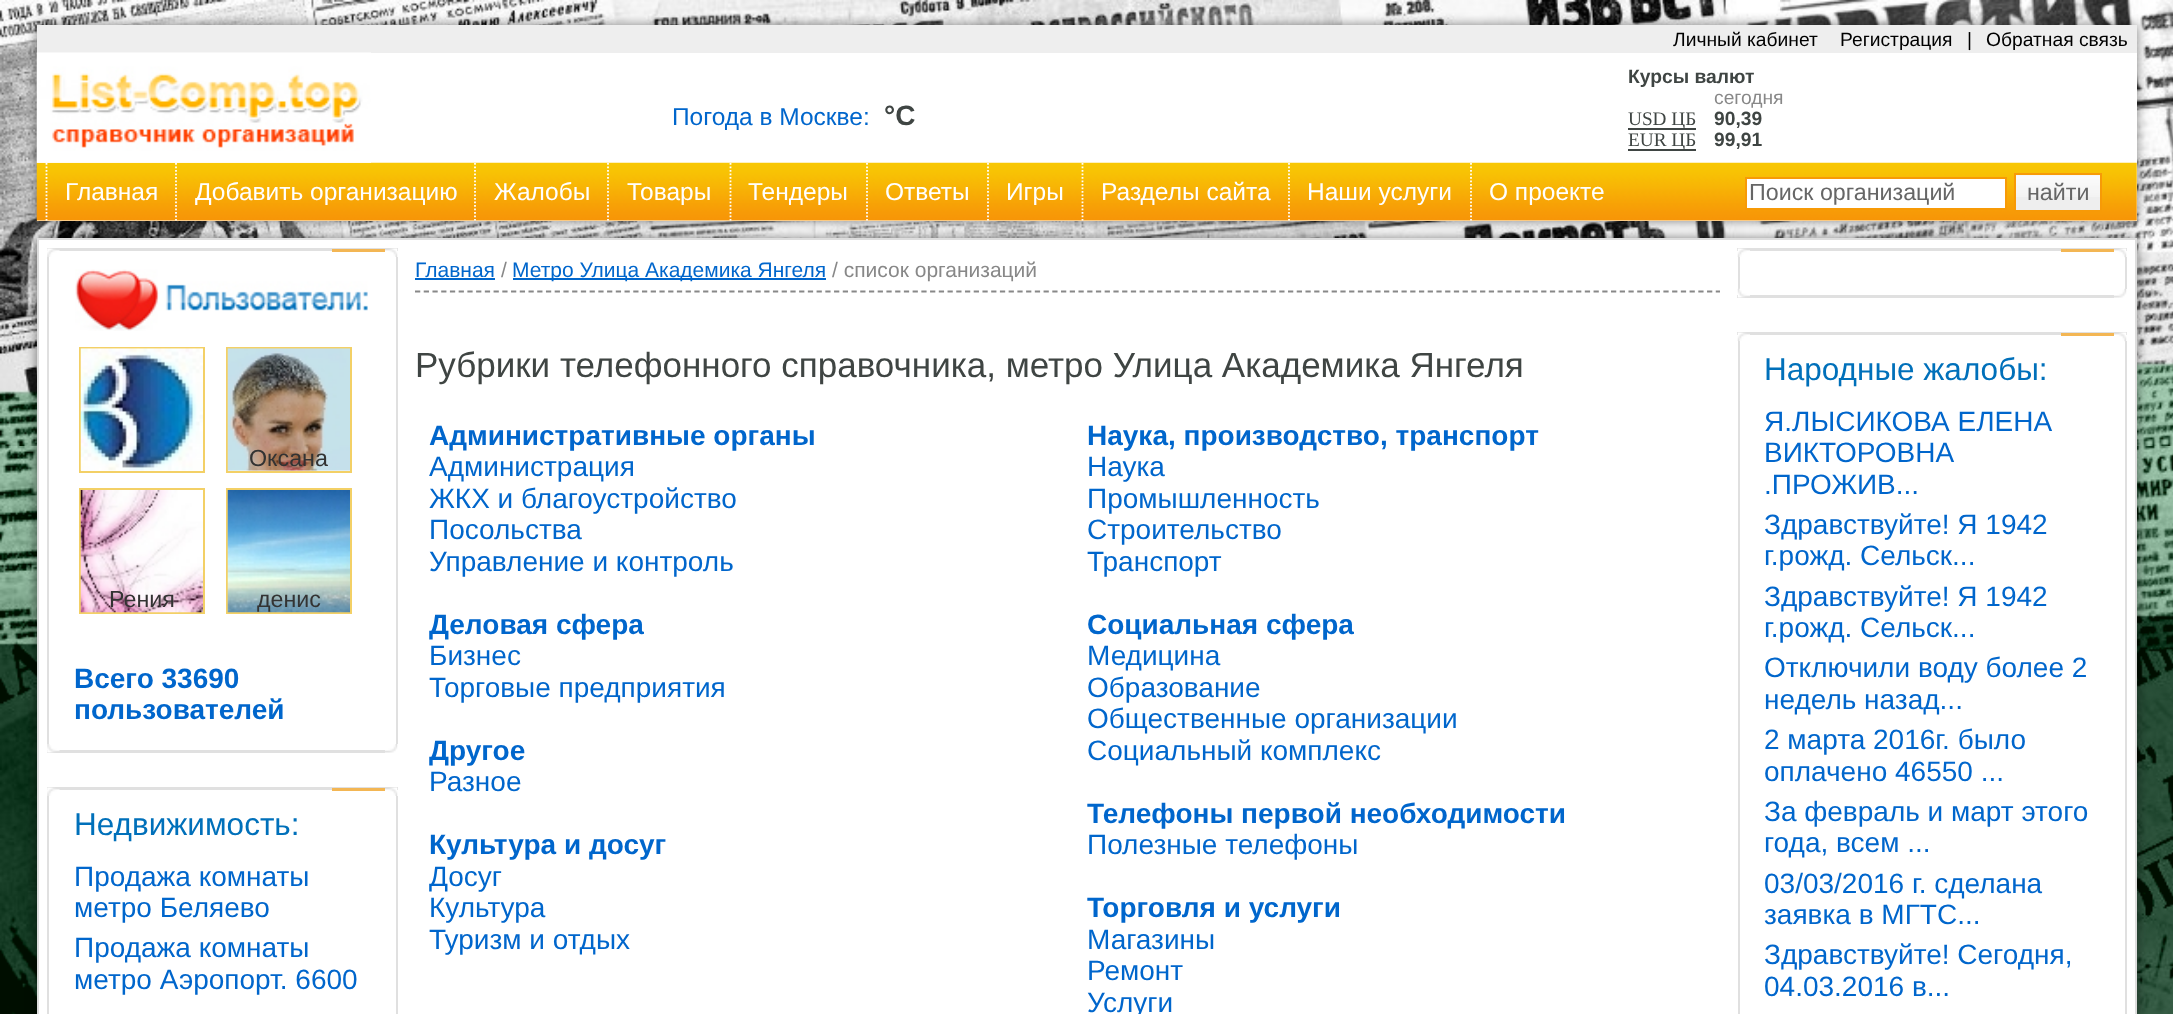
<!DOCTYPE html>
<meta charset="utf-8">
<style>body { margin: 0 } canvas { display: block }</style>
<canvas id="canvas" width="2173" height="1014"></canvas>
<script type="module">
  const canvas = document.getElementById("canvas");
  const g = canvas.getContext("2d");
  g.miterLimit = 4;
  g.fontKerning = "normal";
  function drawText(s, x, y, [font, color]) {
    g.font = font;
    g.fillStyle = color;
    g.fillText(s, x, y);
  }
  function fillBox(x, y, w, h, color) {
    g.fillStyle = color;
    g.fillRect(x, y, w, h);
  }
  async function drawPicture(src, x, y, w, h) {
    const img = new Image();
    img.src = src;
    await img.decode();
    g.drawImage(img, x, y, w, h);
  }

  const s1 = ["19.25px Liberation Sans", "#000000"];
  const s2 = ["24.5px Liberation Sans", "#0066CC"];
  const s3 = ["bold 28px Liberation Sans", "#3F4543"];
  const s4 = ["bold 19.25px Liberation Sans", "#3F4543"];
  const s5 = ["19.25px Liberation Sans", "#888888"];
  const s6 = ["19.25px Liberation Serif", "#3F4543"];
  const s7 = ["24.5px Liberation Sans", "#FFFFFF"];
  const s8 = ["23.25px Liberation Sans", "#666666"];
  const s9 = ["23.25px Liberation Sans", "#333333"];
  const s10 = ["bold 28px Liberation Sans", "#0066CC"];
  const s11 = ["31.5px Liberation Sans", "#0070BA"];
  const s12 = ["28px Liberation Sans", "#0066CC"];
  const s13 = ["21px Liberation Sans", "#0066CC"];
  const s14 = ["21px Liberation Sans", "#888888"];
  const s15 = ["35px Liberation Sans", "#3F4543"];

  fillBox(0, 0, 2173, 1014, "#FFFFFF");
  await drawPicture("pic1.png", 0, 0, 2173, 1014);
  g.fillStyle = "rgba(0, 0, 0, 0.5)";
  g.filter = "blur(6px)";
  g.beginPath();
  g.rect(37, 25, 2100, 196);
  g.fill();
  g.filter = "none";
  fillBox(37, 53, 2100, 168, "#FFFFFF");
  fillBox(37, 25, 2100, 28, "#EEEEEE");
  drawText("Личный кабинет", 1673, 46, s1);
  drawText("Регистрация", 1840, 46, s1);
  drawText("|", 1967, 46, s1);
  drawText("Обратная связь", 1986, 46, s1);
  await drawPicture("pic3.png", 36, 162, 2101, 59);
  await drawPicture("pic2.png", 36, 52, 335, 111);
  drawText("Погода в Москве:", 672, 125, s2);
  drawText("°C", 884, 125, s3);
  drawText("Курсы валют", 1628, 83, s4);
  drawText("сегодня", 1714, 104, s5);
  fillBox(1628, 128, 68, 2, "#3F4543");
  drawText("USD ЦБ", 1628, 125, s6);
  drawText("90,39", 1714, 125, s4);
  fillBox(1628, 149, 68, 2, "#3F4543");
  drawText("EUR ЦБ", 1628, 146, s6);
  drawText("99,91", 1714, 146, s4);
  g.fillStyle = "rgba(0, 0, 0, 0.5)";
  g.filter = "blur(6px)";
  g.beginPath();
  g.rect(37, 238, 2100, 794);
  g.fill();
  g.filter = "none";
  g.beginPath();
  g.moveTo(46.5, 163);
  g.lineTo(46.5, 220.5);
  g.strokeStyle = "#FFFFFF";
  g.lineWidth = 1.8;
  g.setLineDash([1.75, 1.75]);
  g.stroke();
  drawText("Главная", 65, 200, s7);
  g.beginPath();
  g.moveTo(176, 163);
  g.lineTo(176, 220.5);
  g.stroke();
  drawText("Добавить организацию", 195, 200, s7);
  g.beginPath();
  g.moveTo(475, 163);
  g.lineTo(475, 220.5);
  g.stroke();
  drawText("Жалобы", 494, 200, s7);
  g.beginPath();
  g.moveTo(608, 163);
  g.lineTo(608, 220.5);
  g.stroke();
  drawText("Товары", 627, 200, s7);
  g.beginPath();
  g.moveTo(730.5, 163);
  g.lineTo(730.5, 220.5);
  g.stroke();
  drawText("Тендеры", 748, 200, s7);
  g.beginPath();
  g.moveTo(867, 163);
  g.lineTo(867, 220.5);
  g.stroke();
  drawText("Ответы", 885, 200, s7);
  g.beginPath();
  g.moveTo(988, 163);
  g.lineTo(988, 220.5);
  g.stroke();
  drawText("Игры", 1006, 200, s7);
  g.beginPath();
  g.moveTo(1082.5, 163);
  g.lineTo(1082.5, 220.5);
  g.stroke();
  drawText("Разделы сайта", 1101, 200, s7);
  g.beginPath();
  g.moveTo(1289, 163);
  g.lineTo(1289, 220.5);
  g.stroke();
  drawText("Наши услуги", 1307, 200, s7);
  g.beginPath();
  g.moveTo(1471, 163);
  g.lineTo(1471, 220.5);
  g.stroke();
  drawText("О проекте", 1489, 200, s7);
  g.beginPath();
  g.rect(1746, 178, 260, 31);
  g.fill();
  g.strokeStyle = "#F79A07";
  g.lineWidth = 2;
  g.setLineDash([]);
  g.stroke();
  drawText("Поиск организаций", 1749, 200, s8);
  fillBox(2016, 197, 84, 13, "#EEEEEE");
  await drawPicture("pic4.png", 2016, 175, 84, 22);
  g.strokeRect(2015, 174, 86, 37);
  drawText("найти", 2027, 200, s8);
  g.fillStyle = "#FFFFFF";
  g.beginPath();
  g.rect(38, 239, 2098, 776);
  g.fill();
  g.strokeStyle = "#DDDDDD";
  g.stroke();
  fillBox(47, 248, 351, 3, "#E0E0E0");
  await drawPicture("pic5.png", 47, 248, 13, 9);
  fillBox(332, 249, 53, 3, "#F3B654");
  await drawPicture("pic6.png", 385, 248, 13, 9);
  fillBox(47, 257, 2, 487, "#E0E0E0");
  await drawPicture("pic7.png", 75, 269, 293, 62);
  g.strokeStyle = "#F3D066";
  g.strokeRect(80, 348, 124, 124);
  await drawPicture("pic8.png", 80, 348, 123, 123);
  g.strokeRect(227, 348, 124, 124);
  await drawPicture("pic9.png", 227, 348, 123, 123);
  drawText("Оксана", 249, 466, s9);
  g.strokeRect(80, 489, 124, 124);
  await drawPicture("pic10.png", 80, 490, 123, 123);
  drawText("Рения", 109, 607, s9);
  g.strokeRect(227, 489, 124, 124);
  await drawPicture("pic11.png", 227, 490, 123, 123);
  drawText("денис", 257, 607, s9);
  drawText("Всего 33690", 74, 688, s10);
  drawText("пользователей", 74, 719, s10);
  fillBox(396, 257, 2, 487, "#E0E0E0");
  fillBox(47, 750, 338, 3, "#E0E0E0");
  await drawPicture("pic12.png", 47, 744, 13, 9);
  await drawPicture("pic13.png", 385, 744, 13, 9);
  fillBox(47, 787, 351, 3, "#E0E0E0");
  await drawPicture("pic5.png", 47, 787, 13, 9);
  fillBox(332, 788, 53, 3, "#F3B654");
  await drawPicture("pic6.png", 385, 787, 13, 9);
  fillBox(47, 796, 2, 218, "#E0E0E0");
  drawText("Недвижимость:", 74, 835, s11);
  drawText("Продажа комнаты", 74, 886, s12);
  drawText("метро Беляево", 74, 917, s12);
  drawText("Продажа комнаты", 74, 957, s12);
  drawText("метро Аэропорт. 6600", 74, 989, s12);
  fillBox(396, 796, 2, 218, "#E0E0E0");
  g.beginPath();
  g.moveTo(415, 291.5);
  g.lineTo(1720, 291.5);
  g.strokeStyle = "#888888";
  g.lineWidth = 1.8;
  g.setLineDash([5.25, 3.48]);
  g.stroke();
  drawText("Главная", 415, 277, s13);
  fillBox(415, 278, 80, 2, "#0066CC");
  drawText("/", 501, 277, s14);
  fillBox(513, 278, 313, 2, "#0066CC");
  drawText("Метро Улица Академика Янгеля", 512, 277, s13);
  drawText("/ список организаций", 832, 277, s14);
  drawText("Рубрики телефонного справочника, метро Улица Академика Янгеля", 415, 377, s15);
  drawText("Административные органы", 429, 445, s10);
  drawText("Администрация", 429, 476, s12);
  drawText("ЖКХ и благоустройство", 429, 508, s12);
  drawText("Посольства", 429, 539, s12);
  drawText("Управление и контроль", 429, 571, s12);
  drawText("Деловая сфера", 429, 634, s10);
  drawText("Бизнес", 429, 665, s12);
  drawText("Торговые предприятия", 429, 697, s12);
  drawText("Другое", 429, 760, s10);
  drawText("Разное", 429, 791, s12);
  drawText("Культура и досуг", 429, 854, s10);
  drawText("Досуг", 429, 886, s12);
  drawText("Культура", 429, 917, s12);
  drawText("Туризм и отдых", 429, 949, s12);
  drawText("Наука, производство, транспорт", 1087, 445, s10);
  drawText("Наука", 1087, 476, s12);
  drawText("Промышленность", 1087, 508, s12);
  drawText("Строительство", 1087, 539, s12);
  drawText("Транспорт", 1087, 571, s12);
  drawText("Социальная сфера", 1087, 634, s10);
  drawText("Медицина", 1087, 665, s12);
  drawText("Образование", 1087, 697, s12);
  drawText("Общественные организации", 1087, 728, s12);
  drawText("Социальный комплекс", 1087, 760, s12);
  drawText("Телефоны первой необходимости", 1087, 823, s10);
  drawText("Полезные телефоны", 1087, 854, s12);
  drawText("Торговля и услуги", 1087, 917, s10);
  drawText("Магазины", 1087, 949, s12);
  drawText("Ремонт", 1087, 980, s12);
  drawText("Услуги", 1087, 1012, s12);
  fillBox(1737, 248, 390, 3, "#E0E0E0");
  await drawPicture("pic14.png", 1737, 248, 13, 9);
  fillBox(2061, 249, 53, 3, "#F3B654");
  fillBox(2125, 257, 2, 32, "#E0E0E0");
  await drawPicture("pic15.png", 2114, 248, 13, 10);
  fillBox(1738, 257, 2, 32, "#E0E0E0");
  fillBox(1737, 295, 377, 3, "#E0E0E0");
  await drawPicture("pic16.png", 1737, 288, 13, 10);
  await drawPicture("pic17.png", 2114, 288, 13, 10);
  fillBox(1737, 332, 390, 3, "#E0E0E0");
  await drawPicture("pic14.png", 1737, 332, 13, 9);
  fillBox(2061, 333, 53, 3, "#F3B654");
  fillBox(2125, 341, 2, 673, "#E0E0E0");
  await drawPicture("pic15.png", 2114, 332, 13, 10);
  fillBox(1738, 341, 2, 673, "#E0E0E0");
  drawText("Народные жалобы:", 1764, 380, s11);
  drawText("Я.ЛЫСИКОВА ЕЛЕНА", 1764, 431, s12);
  drawText("ВИКТОРОВНА", 1764, 462, s12);
  drawText(".ПРОЖИВ...", 1764, 494, s12);
  drawText("Здравствуйте! Я 1942", 1764, 534, s12);
  drawText("г.рожд. Сельск...", 1764, 565, s12);
  drawText("Здравствуйте! Я 1942", 1764, 606, s12);
  drawText("г.рожд. Сельск...", 1764, 637, s12);
  drawText("Отключили воду более 2", 1764, 677, s12);
  drawText("недель назад...", 1764, 709, s12);
  drawText("2 марта 2016г. было", 1764, 749, s12);
  drawText("оплачено 46550 ...", 1764, 781, s12);
  drawText("За февраль и март этого", 1764, 821, s12);
  drawText("года, всем ...", 1764, 852, s12);
  drawText("03/03/2016 г. сделана", 1764, 893, s12);
  drawText("заявка в МГТС...", 1764, 924, s12);
  drawText("Здравствуйте! Сегодня,", 1764, 964, s12);
  drawText("04.03.2016 в...", 1764, 996, s12);
</script>
